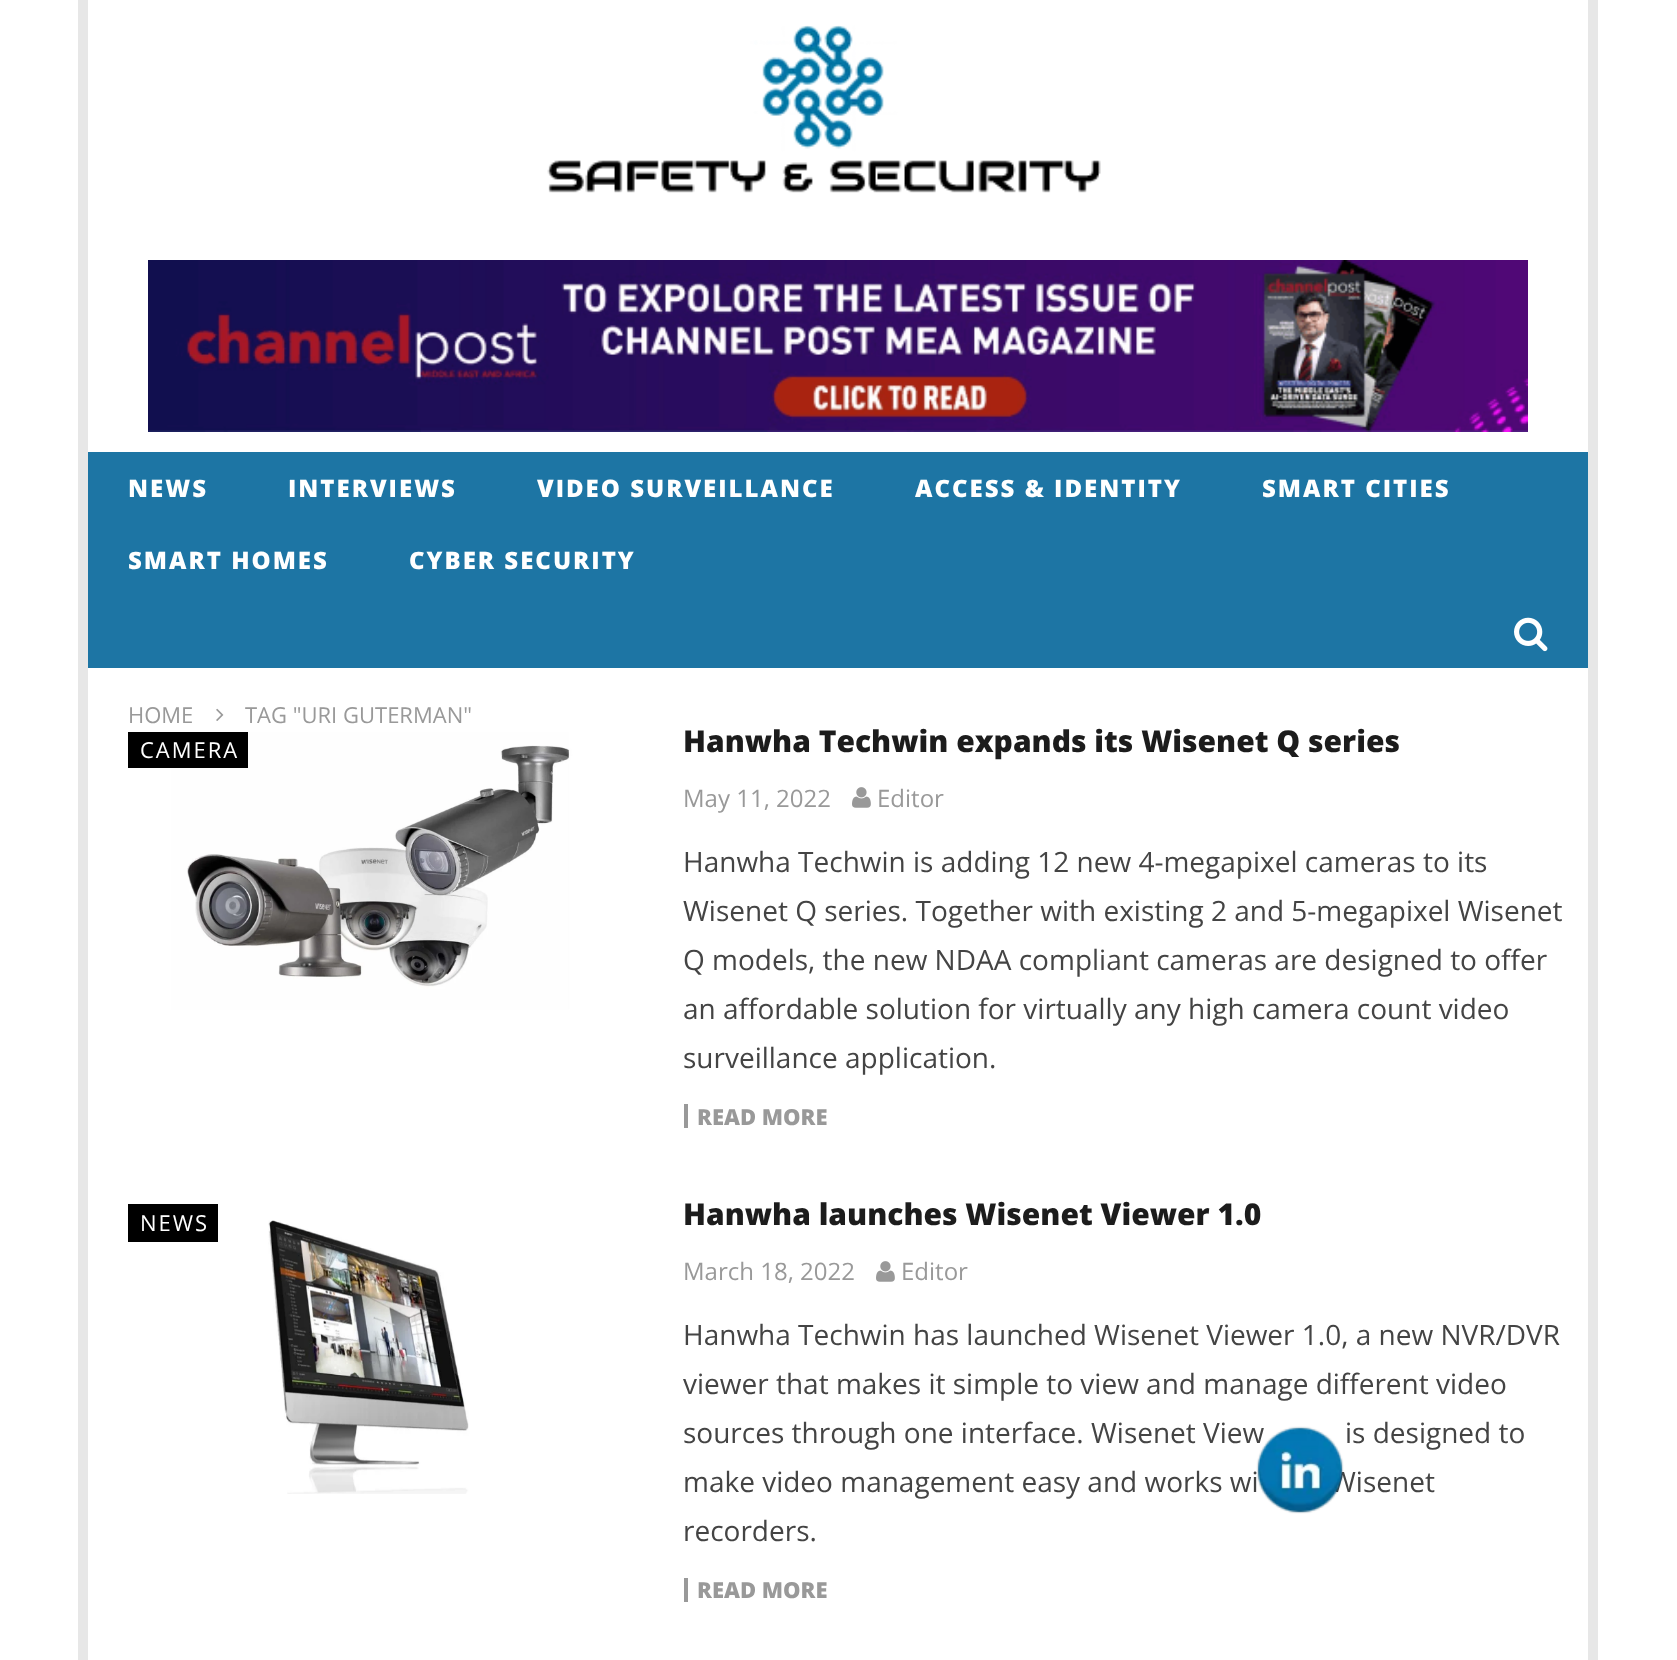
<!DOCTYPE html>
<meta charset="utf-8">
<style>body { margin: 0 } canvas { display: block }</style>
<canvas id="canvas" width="1677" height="1660"></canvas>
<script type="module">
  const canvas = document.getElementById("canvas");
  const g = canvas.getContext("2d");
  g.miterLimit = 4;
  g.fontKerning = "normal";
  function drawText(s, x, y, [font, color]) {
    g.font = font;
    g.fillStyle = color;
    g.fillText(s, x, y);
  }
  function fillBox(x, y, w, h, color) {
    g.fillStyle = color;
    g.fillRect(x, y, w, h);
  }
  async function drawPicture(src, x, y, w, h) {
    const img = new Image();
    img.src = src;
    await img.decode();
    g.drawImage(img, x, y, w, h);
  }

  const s1 = ["800 24px Open Sans", "#FFFFFF"];
  const s2 = ["22px Open Sans", "#999999"];
  const s3 = ["22px Open Sans", "#FFFFFF"];
  const s4 = ["800 30px Open Sans", "#1C1C1C"];
  const s5 = ["24px Open Sans", "#999999"];
  const s6 = ["28px Open Sans", "#444444"];
  const s7 = ["800 22px Open Sans", "#999999"];

  fillBox(0, 0, 1677, 1660, "#FFFFFF");
  fillBox(1588, 0, 10, 1660, "#E7E7E7");
  fillBox(78, 0, 10, 1660, "#E7E7E7");
  await drawPicture("pic1.png", 547, 25, 554, 168);
  await drawPicture("pic2.png", 148, 260, 1380, 172);
  fillBox(88, 452, 1500, 216, "#1D75A4");
  g.letterSpacing = "2px";
  drawText("NEWS", 128, 497, s1);
  drawText("INTERVIEWS", 288, 497, s1);
  drawText("VIDEO SURVEILLANCE", 537, 497, s1);
  drawText("ACCESS & IDENTITY", 915, 497, s1);
  drawText("SMART CITIES", 1262, 497, s1);
  drawText("SMART HOMES", 128, 569, s1);
  drawText("CYBER SECURITY", 409, 569, s1);
  await drawPicture("pic3.png", 1514, 617, 34, 35);
  g.letterSpacing = "0px";
  drawText("HOME", 128, 723, s2);
  await drawPicture("pic4.png", 216, 708, 8, 13);
  drawText("TAG \"URI GUTERMAN\"", 245, 723, s2);
  await drawPicture("pic5.png", 128, 732, 516, 278);
  fillBox(128, 732, 120, 36, "#000000");
  g.letterSpacing = "2px";
  drawText("CAMERA", 140, 758, s3);
  g.letterSpacing = "0px";
  drawText("Hanwha Techwin expands its Wisenet Q series", 683, 752, s4);
  drawText("May 11, 2022", 683, 807, s5);
  await drawPicture("pic6.png", 852, 787, 19, 21);
  drawText("Editor", 877, 807, s5);
  drawText("Hanwha Techwin is adding 12 new 4-megapixel cameras to its", 683, 872, s6);
  drawText("Wisenet Q series. Together with existing 2 and 5-megapixel Wisenet", 683, 921, s6);
  drawText("Q models, the new NDAA compliant cameras are designed to offer", 683, 970, s6);
  drawText("an affordable solution for virtually any high camera count video", 683, 1019, s6);
  drawText("surveillance application.", 683, 1068, s6);
  fillBox(684, 1104, 4, 24, "#999999");
  drawText("READ MORE", 697, 1125, s7);
  await drawPicture("pic7.png", 128, 1204, 516, 290);
  fillBox(128, 1204, 90, 38, "#000000");
  g.letterSpacing = "2px";
  drawText("NEWS", 140, 1231, s3);
  g.letterSpacing = "0px";
  drawText("Hanwha launches Wisenet Viewer 1.0", 683, 1225, s4);
  drawText("March 18, 2022", 683, 1280, s5);
  await drawPicture("pic6.png", 876, 1261, 19, 21);
  drawText("Editor", 901, 1280, s5);
  drawText("Hanwha Techwin has launched Wisenet Viewer 1.0, a new NVR/DVR", 683, 1345, s6);
  drawText("viewer that makes it simple to view and manage different video", 683, 1394, s6);
  drawText("sources through one interface. Wisenet View", 683, 1443, s6);
  drawText("is designed to", 1345, 1443, s6);
  drawText("make video management easy and works wi", 683, 1492, s6);
  drawText("Wisenet", 1330, 1492, s6);
  drawText("recorders.", 683, 1541, s6);
  fillBox(684, 1578, 4, 24, "#999999");
  drawText("READ MORE", 697, 1598, s7);
  await drawPicture("pic8.png", 1256, 1426, 88, 88);
</script>
